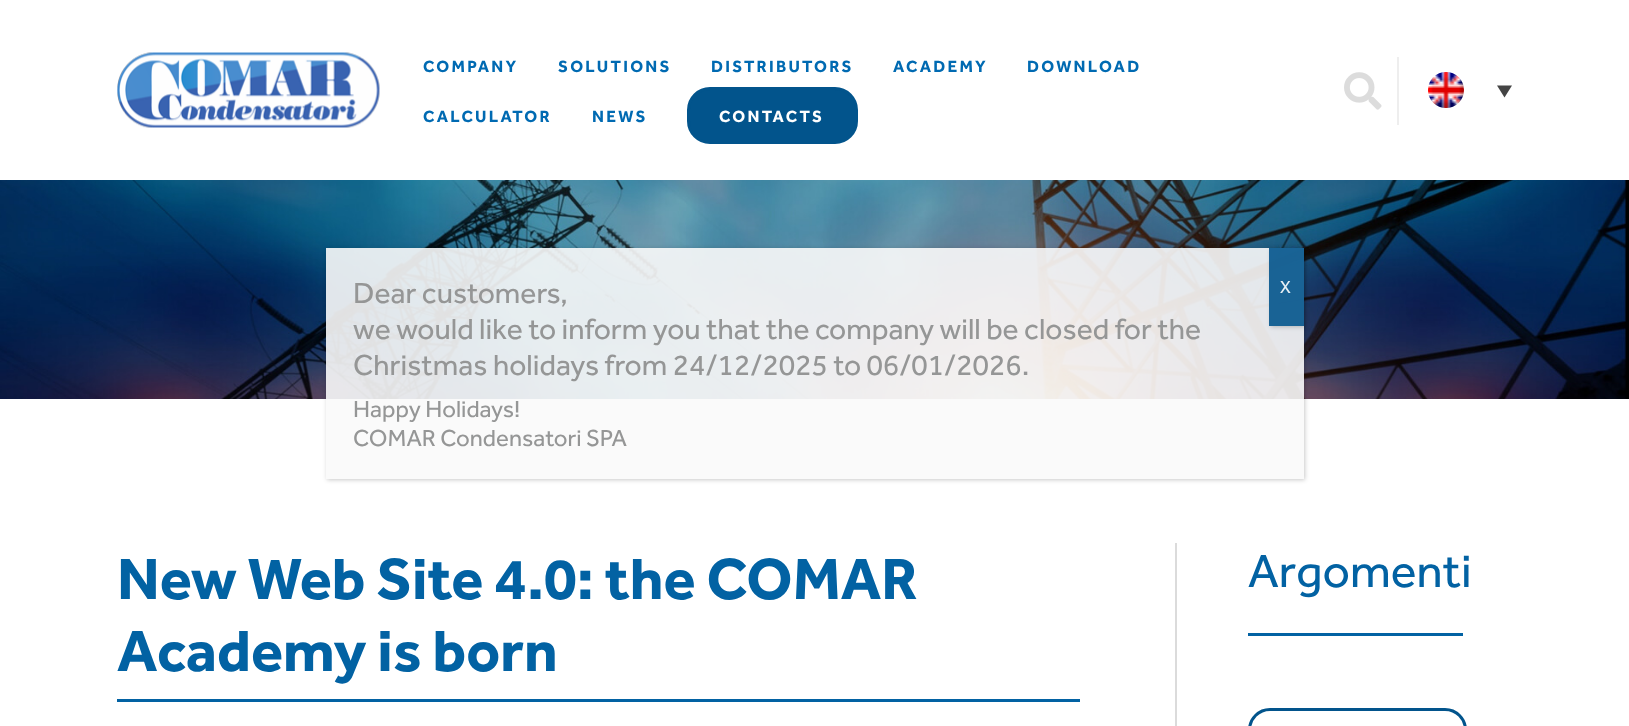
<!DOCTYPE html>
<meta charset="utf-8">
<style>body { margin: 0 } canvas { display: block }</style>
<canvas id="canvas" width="1629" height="726"></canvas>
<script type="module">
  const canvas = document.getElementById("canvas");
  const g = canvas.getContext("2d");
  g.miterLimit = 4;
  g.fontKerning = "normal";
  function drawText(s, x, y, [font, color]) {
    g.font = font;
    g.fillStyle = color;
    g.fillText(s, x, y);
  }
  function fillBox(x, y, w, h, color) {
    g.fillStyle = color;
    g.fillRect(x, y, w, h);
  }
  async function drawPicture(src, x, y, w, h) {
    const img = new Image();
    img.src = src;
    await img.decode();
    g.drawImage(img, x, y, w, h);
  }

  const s1 = ["bold 16.75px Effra", "#006AB2"];
  const s2 = ["bold 16.75px Effra", "#FFFFFF"];
  const s3 = ["30px Effra", "#959696"];
  const s4 = ["24px Effra", "#959696"];
  const s5 = ["18px Effra", "#E7EFF4"];
  const s6 = ["bold 60px Effra", "#0262A3"];
  const s7 = ["48px Effra", "#0262A3"];

  fillBox(0, 0, 1629, 726, "#FFFFFF");
  await drawPicture("pic1.png", 117, 52, 263, 76);
  g.letterSpacing = "2.25px";
  drawText("COMPANY", 423, 72, s1);
  drawText("SOLUTIONS", 558, 72, s1);
  drawText("DISTRIBUTORS", 711, 72, s1);
  drawText("ACADEMY", 893, 72, s1);
  drawText("DOWNLOAD", 1027, 72, s1);
  drawText("CALCULATOR", 423, 122, s1);
  drawText("NEWS", 592, 122, s1);
  g.fillStyle = "#02548C";
  g.beginPath();
  g.roundRect(688.5, 88.5, 168, 54, 21.5);
  g.fill();
  g.strokeStyle = "#02548C";
  g.lineWidth = 3;
  g.stroke();
  drawText("CONTACTS", 719, 122, s2);
  fillBox(1397, 57, 2, 68, "#EEEEEE");
  await drawPicture("pic2.png", 1344, 72, 38, 38);
  await drawPicture("pic3.png", 1428, 72, 36, 36);
  g.fillStyle = "#444444";
  g.beginPath();
  g.moveTo(1497, 85.5);
  g.lineTo(1512, 85.5);
  g.lineTo(1504.5, 97.5);
  g.closePath();
  g.fill();
  await drawPicture("pic4.png", 0, 180, 1629, 219);
  g.save();
  g.beginPath();
  g.moveTo(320, 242);
  g.lineTo(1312, 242);
  g.lineTo(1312, 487);
  g.lineTo(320, 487);
  g.closePath();
  g.moveTo(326, 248);
  g.lineTo(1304, 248);
  g.lineTo(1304, 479);
  g.lineTo(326, 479);
  g.closePath();
  g.clip("evenodd");
  g.fillStyle = "rgba(2, 2, 2, 0.21)";
  g.filter = "blur(2px)";
  g.beginPath();
  g.rect(327, 249, 978, 231);
  g.fill();
  g.filter = "none";
  g.restore();
  fillBox(326, 248, 978, 231, "rgba(249, 249, 249, 0.9)");
  g.letterSpacing = "0px";
  drawText("Dear customers,", 353, 303, s3);
  drawText("we would like to inform you that the company will be closed for the", 353, 339, s3);
  drawText("Christmas holidays from 24/12/2025 to 06/01/2026.", 353, 375, s3);
  drawText("Happy Holidays!", 353, 417, s4);
  drawText("COMAR Condensatori SPA", 353, 446, s4);
  g.save();
  g.beginPath();
  g.moveTo(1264, 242);
  g.lineTo(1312, 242);
  g.lineTo(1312, 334);
  g.lineTo(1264, 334);
  g.closePath();
  g.moveTo(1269, 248);
  g.lineTo(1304, 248);
  g.lineTo(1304, 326);
  g.lineTo(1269, 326);
  g.closePath();
  g.clip("evenodd");
  g.fillStyle = "rgba(2, 2, 2, 0.21)";
  g.filter = "blur(2px)";
  g.beginPath();
  g.rect(1271, 249, 34, 78);
  g.fill();
  g.filter = "none";
  g.restore();
  fillBox(1269, 248, 35, 78, "rgba(2, 84, 140, 0.9)");
  drawText("X", 1280, 293, s5);
  fillBox(117, 699, 963, 3, "#0262A3");
  drawText("New Web Site 4.0: the COMAR", 117, 599, s6);
  drawText("Academy is born", 117, 671, s6);
  fillBox(1175, 543, 2, 183, "#DBDBDB");
  fillBox(1248, 633, 215, 3, "#0262A3");
  drawText("Argomenti", 1248, 587, s7);
  g.beginPath();
  g.roundRect(1249.5, 709.5, 216, 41, 21.5);
  g.stroke();
</script>
